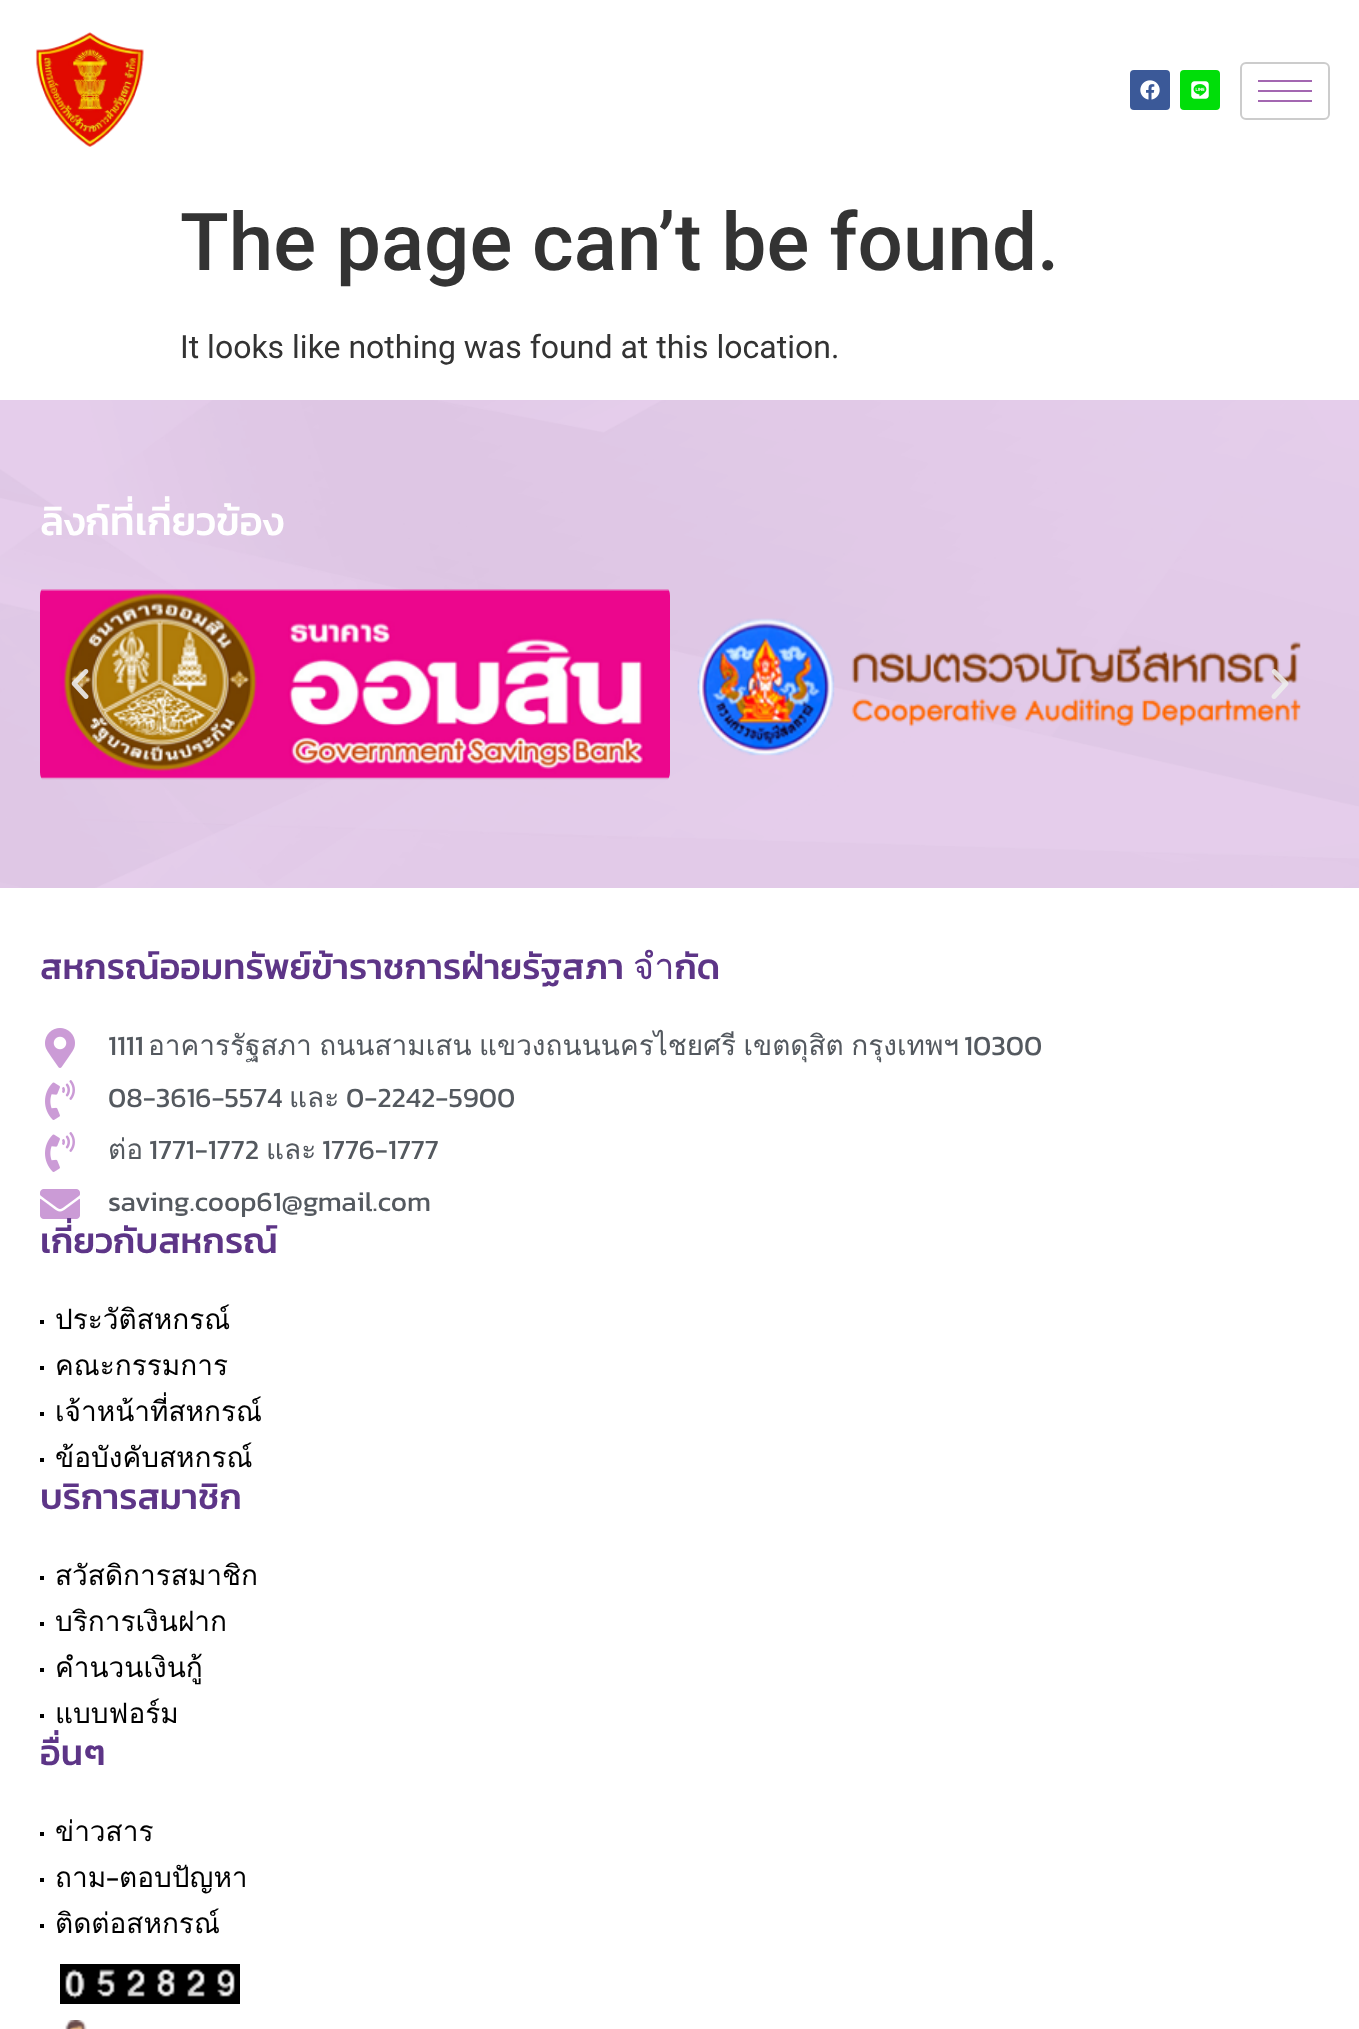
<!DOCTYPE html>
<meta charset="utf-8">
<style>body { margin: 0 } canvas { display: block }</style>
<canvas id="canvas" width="1359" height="2029"></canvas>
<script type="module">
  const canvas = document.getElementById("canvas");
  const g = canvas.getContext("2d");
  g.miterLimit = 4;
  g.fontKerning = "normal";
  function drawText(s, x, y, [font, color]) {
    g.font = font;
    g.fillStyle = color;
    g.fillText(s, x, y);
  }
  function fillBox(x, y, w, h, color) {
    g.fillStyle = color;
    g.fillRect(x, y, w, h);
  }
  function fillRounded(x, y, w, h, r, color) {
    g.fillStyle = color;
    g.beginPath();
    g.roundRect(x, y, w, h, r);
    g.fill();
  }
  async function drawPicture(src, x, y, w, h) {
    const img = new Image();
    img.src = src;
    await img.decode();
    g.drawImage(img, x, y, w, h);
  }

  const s1 = ["500 80px Roboto", "#333333"];
  const s2 = ["32px Roboto", "#333333"];
  const s3 = ["500 40px Kanit", "#FFFFFF"];
  const s4 = ["500 36px Kanit", "#5D3587"];
  const s5 = ["28px Kanit", "#54595F"];
  const s6 = ["28px Loma", "#54595F"];
  const s7 = ["28px Loma", "#000000"];
  const s8 = ["28px Kanit", "#000000"];

  fillBox(0, 0, 1359, 2029, "#FFFFFF");
  fillBox(0, 400, 1359, 488, "#E5CDEB");
  await drawPicture("pic1.png", 35, 32, 109, 115);
  fillRounded(1130, 70, 40, 40, 4, "#3B5998");
  await drawPicture("pic2.png", 1140, 80, 20, 20);
  fillRounded(1180, 70, 40, 40, 4, "#00DE09");
  await drawPicture("pic3.png", 1191, 81, 18, 18);
  g.beginPath();
  g.roundRect(1241, 63, 88, 56, 5);
  g.strokeStyle = "#CCCCCC";
  g.lineWidth = 2;
  g.stroke();
  fillBox(1258, 80, 54, 2, "#A367B1");
  fillBox(1258, 90, 54, 2, "#A367B1");
  fillBox(1258, 100, 54, 2, "#A367B1");
  drawText("The page can’t be found.", 180, 270, s1);
  drawText("It looks like nothing was found at this location.", 180, 358, s2);
  await drawPicture("pic4.png", 0, 400, 1359, 488);
  drawText("ลิงก์ที่เกี่ยวข้อง", 40, 535, s3);
  await drawPicture("pic5.png", 40, 589, 630, 191);
  await drawPicture("pic6.png", 697, 618, 604, 138);
  await drawPicture("pic7.png", 71, 669, 18, 30);
  await drawPicture("pic8.png", 1271, 669, 18, 30);
  drawText("สหกรณ์ออมทรัพย์ข้าราชการฝ่ายรัฐสภา จำกัด", 40, 979, s4);
  await drawPicture("pic9.png", 45, 1028, 30, 40);
  drawText("1111", 108, 1055, s5);
  g.wordSpacing = "-2px";
  drawText("อาคารรัฐสภา ถนนสามเสน แขวงถนนนครไชยศรี เขตดุสิต กรุงเทพฯ", 148, 1055, s6);
  g.wordSpacing = "0px";
  drawText("10300", 964, 1055, s5);
  await drawPicture("pic10.png", 45, 1080, 30, 40);
  drawText("08-3616-5574", 108, 1107, s5);
  drawText("และ", 289, 1107, s6);
  drawText("0-2242-5900", 346, 1107, s5);
  await drawPicture("pic10.png", 45, 1132, 30, 40);
  drawText("ต่อ", 108, 1159, s6);
  drawText("1771-1772", 149, 1159, s5);
  drawText("และ", 266, 1159, s6);
  drawText("1776-1777", 322, 1159, s5);
  await drawPicture("pic11.png", 40, 1189, 40, 30);
  drawText("saving.coop61@gmail.com", 108, 1211, s5);
  drawText("เกี่ยวกับสหกรณ์", 40, 1253, s4);
  fillBox(40, 1320, 4, 4, "#000000");
  drawText("ประวัติสหกรณ์", 55, 1329, s7);
  fillBox(40, 1366, 4, 4, "#000000");
  drawText("คณะกรรมการ", 55, 1375, s7);
  fillBox(40, 1412, 4, 4, "#000000");
  drawText("เจ้าหน้าที่สหกรณ์", 55, 1421, s7);
  fillBox(40, 1458, 4, 4, "#000000");
  drawText("ข้อบังคับสหกรณ์", 55, 1467, s7);
  drawText("บริการสมาชิก", 40, 1509, s4);
  fillBox(40, 1576, 4, 4, "#000000");
  drawText("สวัสดิการสมาชิก", 55, 1585, s7);
  fillBox(40, 1622, 4, 4, "#000000");
  drawText("บริการเงินฝาก", 55, 1631, s7);
  fillBox(40, 1668, 4, 4, "#000000");
  drawText("คำนวนเงินกู้", 55, 1677, s7);
  fillBox(40, 1714, 4, 4, "#000000");
  drawText("แบบฟอร์ม", 55, 1723, s7);
  drawText("อื่นๆ", 40, 1765, s4);
  fillBox(40, 1832, 4, 4, "#000000");
  drawText("ข่าวสาร", 55, 1841, s7);
  fillBox(40, 1878, 4, 4, "#000000");
  drawText("ถาม", 55, 1887, s7);
  drawText("-", 106, 1887, s8);
  drawText("ตอบปัญหา", 119, 1887, s7);
  drawText("ติดต่อสหกรณ์", 55, 1933, s7);
  fillBox(40, 1924, 4, 4, "#000000");
  await drawPicture("pic12.png", 60, 1964, 30, 40);
  await drawPicture("pic13.png", 90, 1964, 30, 40);
  await drawPicture("pic14.png", 120, 1964, 30, 40);
  await drawPicture("pic15.png", 150, 1964, 30, 40);
  await drawPicture("pic14.png", 180, 1964, 30, 40);
  await drawPicture("pic16.png", 210, 1964, 30, 40);
  await drawPicture("pic17.png", 65, 2020, 22, 9);
</script>
